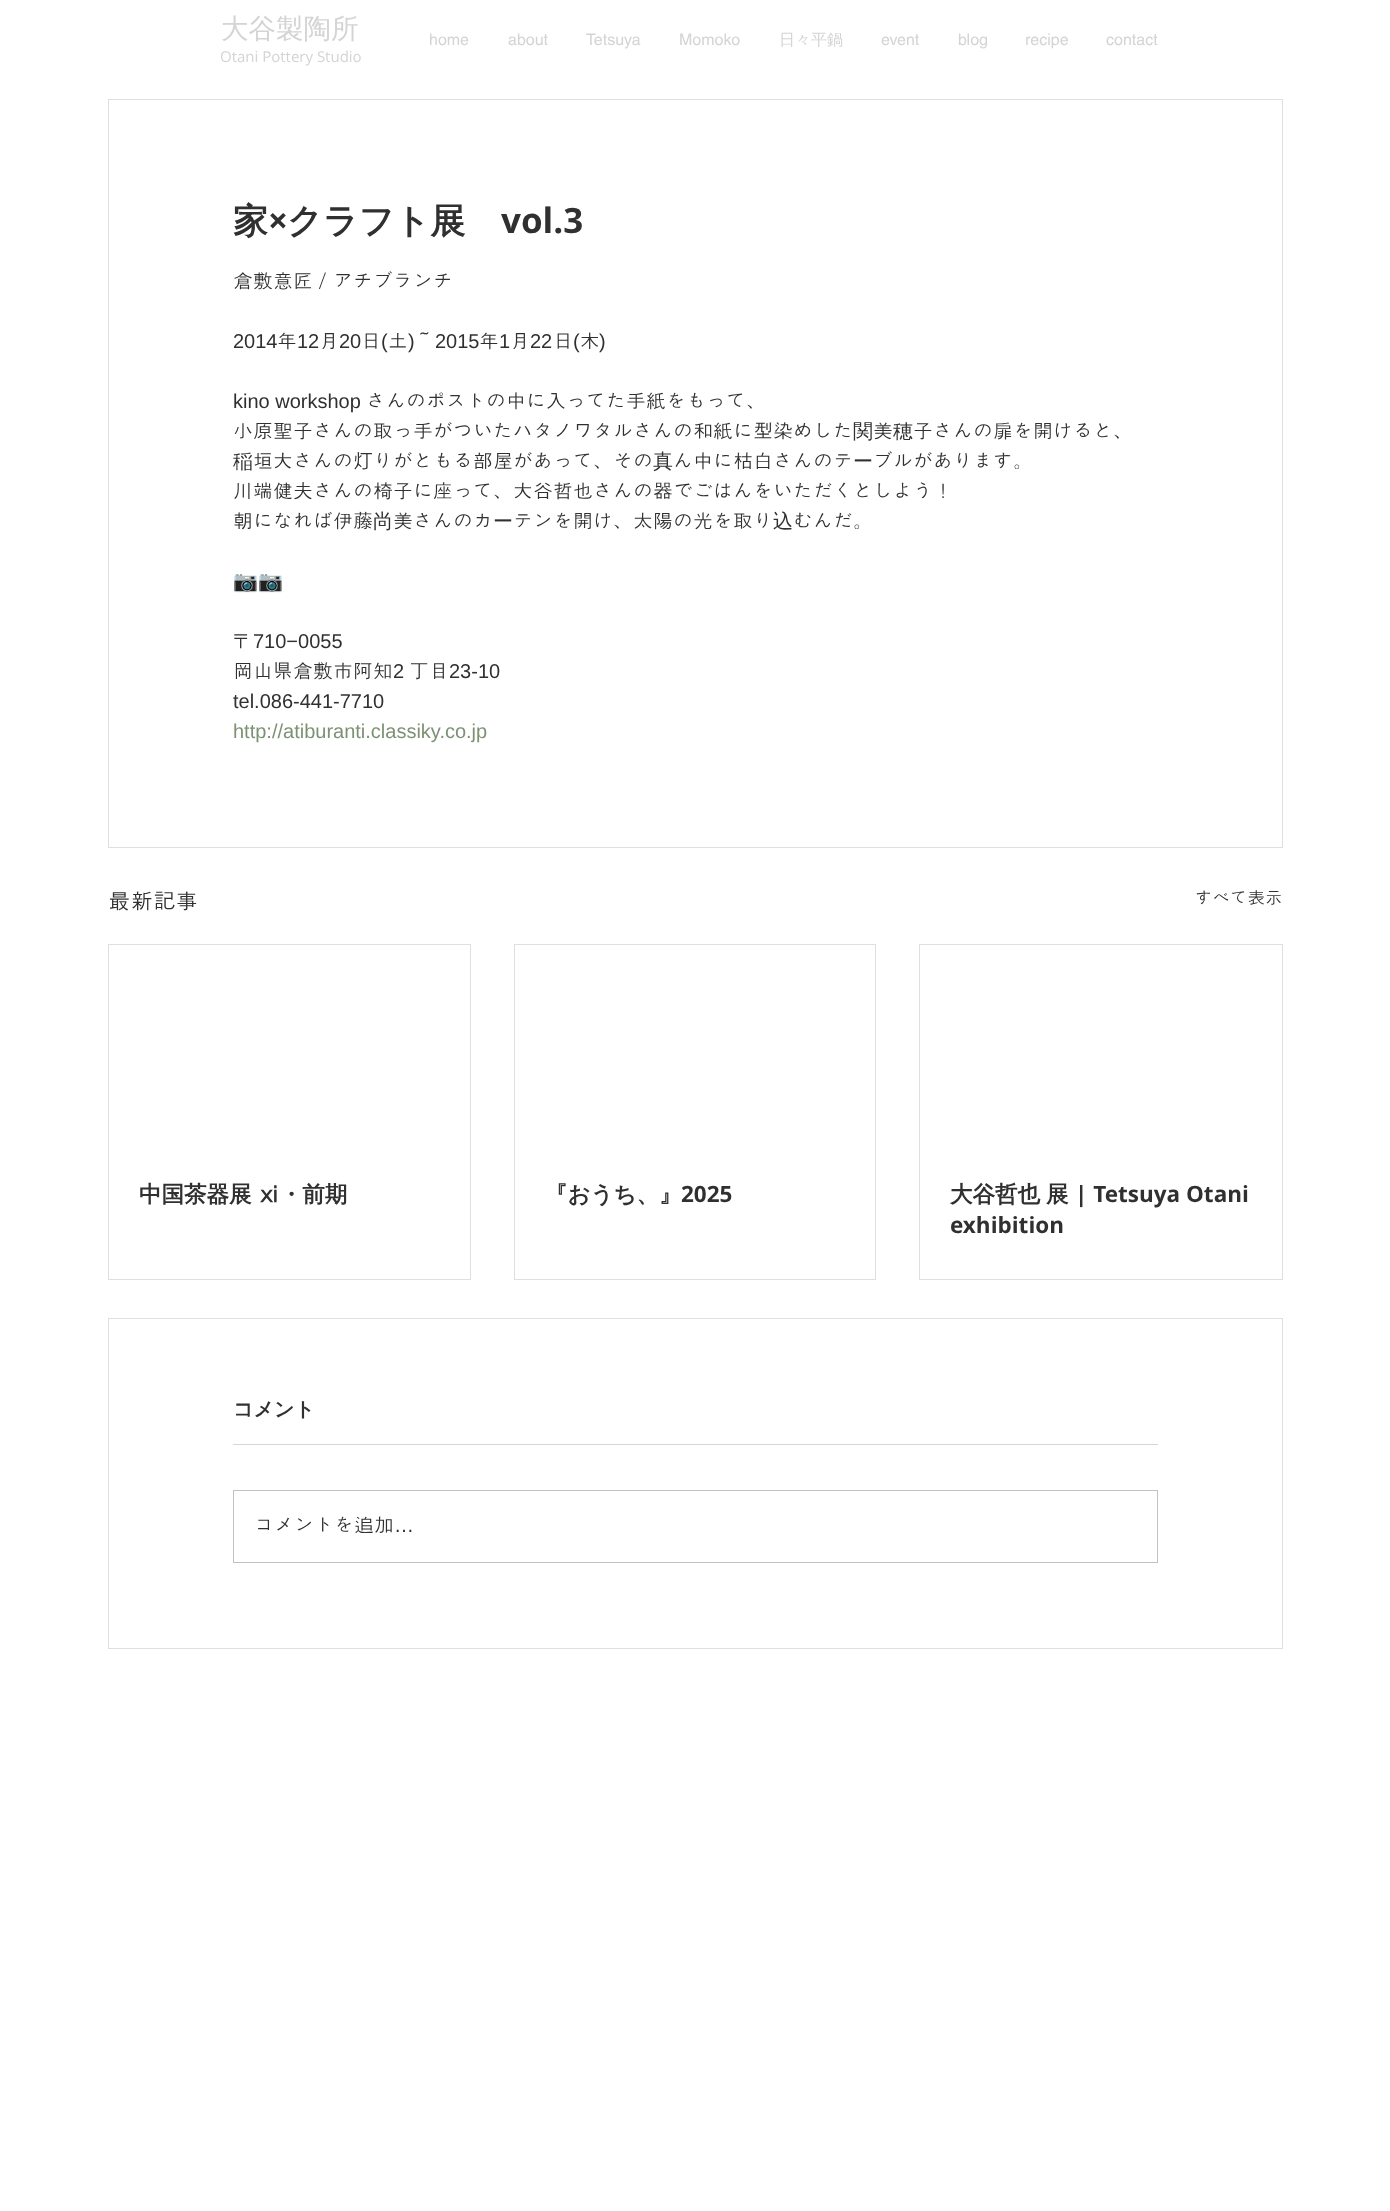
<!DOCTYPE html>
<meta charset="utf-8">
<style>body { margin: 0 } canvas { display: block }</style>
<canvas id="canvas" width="1390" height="2211"></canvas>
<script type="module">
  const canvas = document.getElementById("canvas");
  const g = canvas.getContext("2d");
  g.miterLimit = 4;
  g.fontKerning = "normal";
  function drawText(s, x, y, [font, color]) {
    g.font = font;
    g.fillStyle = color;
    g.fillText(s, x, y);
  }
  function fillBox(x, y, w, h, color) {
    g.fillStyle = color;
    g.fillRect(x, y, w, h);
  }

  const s1 = ["500 27.5px WenQuanYi Zen Hei", "#D4D4D4"];
  const s2 = ["16px helvetica", "#D4D4D4"];
  const s3 = ["500 16px WenQuanYi Zen Hei", "#D4D4D4"];
  const s4 = ["15px Open Sans", "#D4D4D4"];
  const s5 = ["bold 35px WenQuanYi Zen Hei", "#303030"];
  const s6 = ["bold 35px Open Sans", "#303030"];
  const s7 = ["20px Dotum", "#303030"];
  const s8 = ["20px Liberation Sans", "#303030"];
  const s9 = ["500 20px WenQuanYi Zen Hei", "#303030"];
  const s10 = ["20px Noto Color Emoji", "#303030"];
  const s11 = ["20px Liberation Sans", "#7D9174"];
  const s12 = ["22.5px Dotum", "#303030"];
  const s13 = ["17.5px Dotum", "#303030"];
  const s14 = ["bold 22.5px WenQuanYi Zen Hei", "#303030"];
  const s15 = ["bold 22.5px Open Sans", "#303030"];
  const s16 = ["bold 20px WenQuanYi Zen Hei", "#303030"];

  fillBox(0, 0, 1390, 2211, "#FFFFFF");
  drawText("大谷製陶所", 221, 38, s1);
  drawText("home", 429, 45, s2);
  drawText("about", 508, 45, s2);
  drawText("Tetsuya", 586, 45, s2);
  drawText("Momoko", 679, 45, s2);
  drawText("日々平鍋", 779, 45, s3);
  drawText("event", 881, 45, s2);
  drawText("blog", 958, 45, s2);
  drawText("recipe", 1025, 45, s2);
  drawText("contact", 1106, 45, s2);
  drawText("Otani Pottery Studio", 220, 62, s4);
  g.strokeStyle = "#DFDFDF";
  g.strokeRect(108.5, 99.5, 1174, 748);
  drawText("家", 233, 233, s5);
  drawText("×", 268, 233, s6);
  drawText("クラフト展", 287, 233, s5);
  drawText("vol.3", 501, 233, s6);
  drawText("倉敷意匠／アチブランチ", 233, 288, s7);
  drawText("年", 277, 348, s7);
  drawText("月", 319, 348, s7);
  drawText("日 土 ～", 361, 348, s7);
  drawText("年", 479, 348, s7);
  drawText("日 木", 553, 348, s7);
  drawText("2014", 233, 348, s8);
  drawText("12", 297, 348, s8);
  drawText("20", 339, 348, s8);
  drawText("(", 381, 348, s8);
  drawText(")", 408, 348, s8);
  drawText("2015", 435, 348, s8);
  drawText("1", 499, 348, s8);
  drawText("月", 510, 348, s7);
  drawText("22", 530, 348, s8);
  drawText("(", 573, 348, s8);
  drawText(")", 599, 348, s8);
  drawText("kino workshop", 233, 408, s8);
  drawText("さんのポストの中に入ってた手紙をもって、", 366, 408, s7);
  drawText("小原聖子さんの取っ手がついたハタノワタルさんの和紙に型染めした", 233, 438, s7);
  drawText("関", 853, 438, s9);
  drawText("美", 873, 438, s7);
  drawText("穂", 893, 438, s9);
  drawText("子さんの扉を開けると、", 913, 438, s7);
  drawText("稲", 233, 468, s9);
  drawText("垣大さんの灯りがともる部屋があって、その", 253, 468, s7);
  drawText("真", 653, 468, s9);
  drawText("ん中に枯白さんのテ", 673, 468, s7);
  drawText("ー", 853, 468, s9);
  drawText("ブルがあります。", 873, 468, s7);
  drawText("川端健夫さんの椅子に座って、大谷哲也さんの器でごはんをいただくとしよう！", 233, 498, s7);
  drawText("朝になれば伊藤", 233, 528, s7);
  drawText("尚", 373, 528, s9);
  drawText("美さんのカ", 393, 528, s7);
  drawText("ー", 493, 528, s9);
  drawText("テンを開け、太陽の光を取り", 513, 528, s7);
  drawText("込", 773, 528, s9);
  drawText("むんだ。", 793, 528, s7);
  drawText("📷📷", 233, 588, s10);
  drawText("〒", 233, 648, s9);
  drawText("710−0055", 253, 648, s8);
  drawText("岡山県倉敷市阿知", 233, 678, s7);
  drawText("2", 393, 678, s8);
  drawText("丁目", 409, 678, s7);
  drawText("23-10", 449, 678, s8);
  drawText("tel.086-441-7710", 233, 708, s8);
  drawText("http://atiburanti.classiky.co.jp", 233, 738, s11);
  drawText("最新記事", 108, 909, s12);
  drawText("すべて表示", 1195, 904, s13);
  g.strokeRect(108.5, 944.5, 362, 335);
  g.wordSpacing = "-1px";
  drawText("中国茶器展 ⅺ・前期", 139, 1202, s14);
  g.strokeRect(514.5, 944.5, 361, 335);
  g.wordSpacing = "0px";
  drawText("『おうち、』", 545, 1202, s14);
  drawText("2025", 681, 1202, s15);
  g.strokeRect(919.5, 944.5, 363, 335);
  drawText("大谷哲也", 950, 1202, s14);
  drawText("展", 1046, 1202, s14);
  drawText("| Tetsuya Otani", 1075, 1202, s15);
  drawText("exhibition", 950, 1233, s15);
  g.strokeRect(108.5, 1318.5, 1174, 330);
  drawText("コメント", 233, 1416, s16);
  fillBox(233, 1444, 925, 1, "#D6D6D6");
  g.strokeStyle = "#C1C1C1";
  g.strokeRect(233.5, 1490.5, 924, 72);
  drawText("コメントを追加", 254, 1532, s7);
  drawText("…", 394, 1532, s8);
</script>
